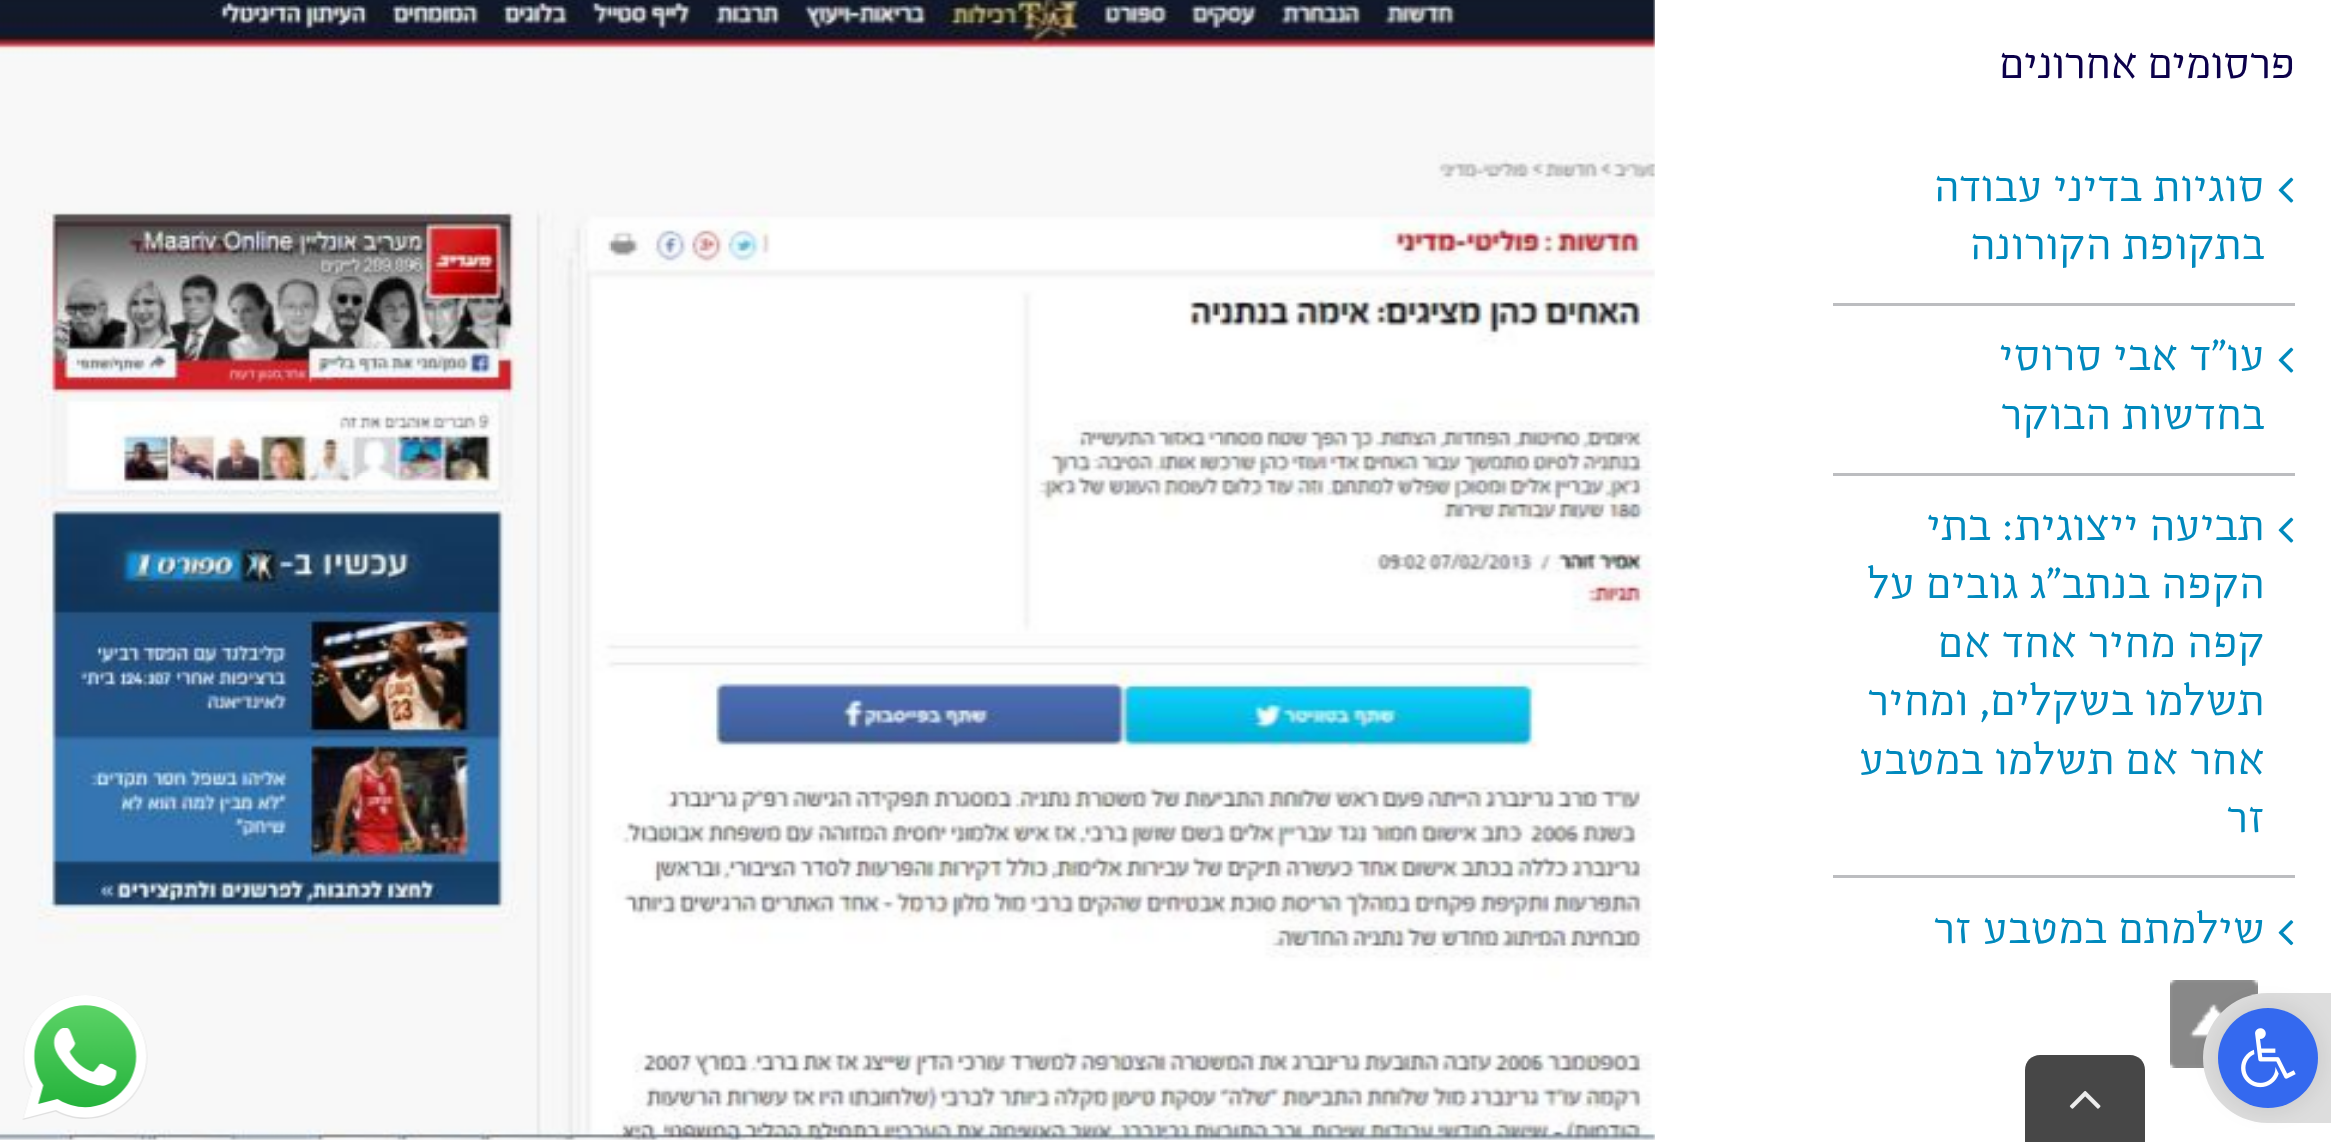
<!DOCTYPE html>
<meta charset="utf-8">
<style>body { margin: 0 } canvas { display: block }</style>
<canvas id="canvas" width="2331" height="1142"></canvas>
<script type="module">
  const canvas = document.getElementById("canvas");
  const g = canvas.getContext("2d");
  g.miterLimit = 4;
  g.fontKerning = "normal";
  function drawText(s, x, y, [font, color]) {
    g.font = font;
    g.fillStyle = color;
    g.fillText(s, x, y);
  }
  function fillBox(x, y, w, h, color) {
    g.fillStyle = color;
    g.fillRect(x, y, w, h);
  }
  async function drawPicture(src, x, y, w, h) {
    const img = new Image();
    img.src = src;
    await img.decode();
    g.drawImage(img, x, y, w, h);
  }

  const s1 = ["300 45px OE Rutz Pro", "#0C014B"];
  const s2 = ["300 45px OE Rutz Pro", "#0089BD"];

  fillBox(0, 0, 2331, 1142, "#FFFFFF");
  g.direction = "rtl";
  drawText("פרסומים אחרונים", 2295, 78, s1);
  fillBox(1833, 303, 462, 3, "#BCBDC0");
  await drawPicture("pic1.png", 2278, 177, 16, 26);
  g.letterSpacing = "0.75px";
  drawText("סוגיות בדיני עבודה", 2265, 201, s2);
  drawText("בתקופת הקורונה", 2265, 259, s2);
  fillBox(1833, 473, 462, 3, "#BCBDC0");
  await drawPicture("pic1.png", 2278, 347, 16, 26);
  drawText("עו\"ד אבי סרוסי", 2265, 370, s2);
  drawText("בחדשות הבוקר", 2265, 429, s2);
  fillBox(1833, 875, 462, 3, "#BCBDC0");
  await drawPicture("pic1.png", 2278, 517, 16, 26);
  drawText("תביעה ייצוגית: בתי", 2265, 540, s2);
  drawText("הקפה בנתב\"ג גובים על", 2265, 598, s2);
  drawText("קפה מחיר אחד אם", 2265, 657, s2);
  drawText("תשלמו בשקלים, ומחיר", 2265, 715, s2);
  drawText("אחר אם תשלמו במטבע", 2265, 774, s2);
  drawText("זר", 2265, 832, s2);
  await drawPicture("pic2.png", 2278, 920, 16, 26);
  drawText("שילמתם במטבע זר", 2265, 943, s2);
  await drawPicture("pic3.png", 0, 0, 1655, 1140);
  await drawPicture("pic4.png", 22, 995, 126, 125);
  await drawPicture("pic6.png", 2170, 980, 88, 88);
  g.fillStyle = "#DDDDDD";
  g.beginPath();
  g.moveTo(2268, 993);
  g.lineTo(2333, 993);
  g.lineTo(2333, 1123);
  g.lineTo(2268, 1123);
  g.bezierCurveTo(2232, 1123, 2203, 1094, 2203, 1058);
  g.bezierCurveTo(2203, 1022, 2232, 993, 2268, 993);
  g.closePath();
  g.fill();
  g.fillStyle = "rgba(0, 0, 0, 0.1)";
  g.filter = "blur(12.5px)";
  g.beginPath();
  g.roundRect(2218, 1008, 100, 100, 50);
  g.fill();
  g.filter = "none";
  g.fillStyle = "#3469EF";
  g.beginPath();
  g.arc(2268, 1058, 50, 0, Math.PI * 2);
  g.fill();
  await drawPicture("pic5.png", 2241, 1028, 55, 60);
  g.fillStyle = "rgba(51, 51, 51, 0.9)";
  g.beginPath();
  g.moveTo(2040, 1055);
  g.lineTo(2130, 1055);
  g.bezierCurveTo(2138.5, 1055, 2145, 1061.5, 2145, 1070);
  g.lineTo(2145, 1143);
  g.lineTo(2025, 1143);
  g.lineTo(2025, 1070);
  g.bezierCurveTo(2025, 1061.5, 2031.5, 1055, 2040, 1055);
  g.closePath();
  g.fill();
  await drawPicture("pic7.png", 2069, 1090, 32, 19);
</script>
